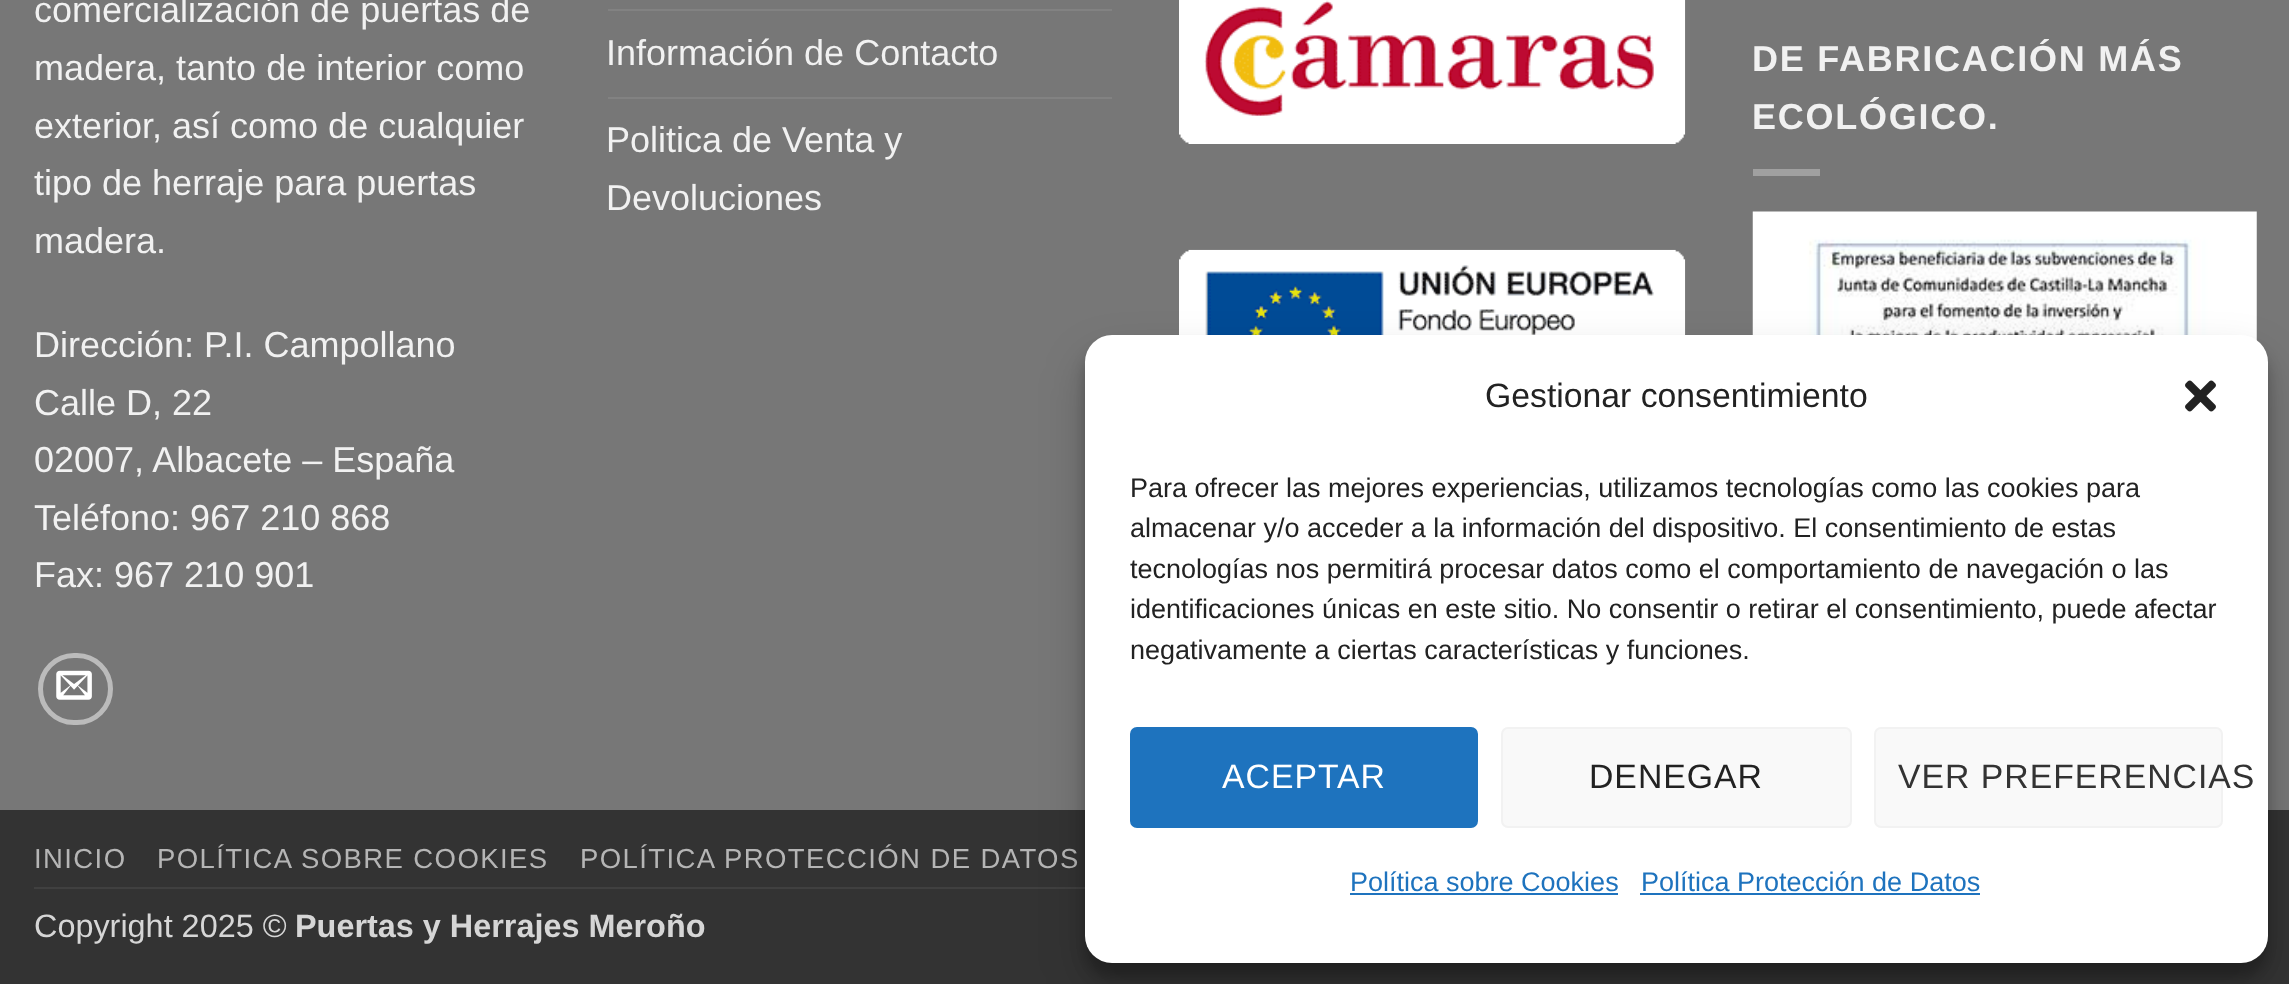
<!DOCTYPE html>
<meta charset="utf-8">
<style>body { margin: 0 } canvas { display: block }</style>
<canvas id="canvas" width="2289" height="984"></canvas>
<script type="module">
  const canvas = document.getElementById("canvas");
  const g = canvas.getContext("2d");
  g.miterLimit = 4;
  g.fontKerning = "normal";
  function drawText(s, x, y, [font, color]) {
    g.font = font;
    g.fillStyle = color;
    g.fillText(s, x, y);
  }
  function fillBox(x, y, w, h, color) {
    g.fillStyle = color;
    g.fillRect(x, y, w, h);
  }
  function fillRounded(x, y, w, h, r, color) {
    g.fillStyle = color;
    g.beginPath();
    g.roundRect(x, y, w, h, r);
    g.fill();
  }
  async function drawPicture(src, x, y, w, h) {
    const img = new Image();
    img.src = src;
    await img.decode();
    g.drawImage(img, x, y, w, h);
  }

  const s1 = ["36px Liberation Sans", "#F1F1F1"];
  const s2 = ["bold 36px Liberation Sans", "#F1F1F1"];
  const s3 = ["27.5px Liberation Sans", "#B5B5B5"];
  const s4 = ["32.4px Liberation Sans", "#D6D6D6"];
  const s5 = ["bold 32.4px Liberation Sans", "#D6D6D6"];
  const s6 = ["33.75px Liberation Sans", "#222222"];
  const s7 = ["27px Liberation Sans", "#222222"];
  const s8 = ["33.75px Liberation Sans", "#FFFFFF"];
  const s9 = ["33.75px Liberation Sans", "#333333"];
  const s10 = ["27px Liberation Sans", "#1E73BE"];

  fillBox(0, 0, 2289, 984, "#777777");
  drawText("comercialización de puertas de", 34, 22, s1);
  drawText("madera, tanto de interior como", 34, 80, s1);
  drawText("exterior, así como de cualquier", 34, 138, s1);
  drawText("tipo de herraje para puertas", 34, 195, s1);
  drawText("madera.", 34, 253, s1);
  drawText("Dirección: P.I. Campollano", 34, 357, s1);
  drawText("Calle D, 22", 34, 415, s1);
  drawText("02007, Albacete – España", 34, 472, s1);
  drawText("Teléfono: 967 210 868", 34, 530, s1);
  drawText("Fax: 967 210 901", 34, 587, s1);
  g.beginPath();
  g.roundRect(40.5, 655.5, 70, 67, 33.5);
  g.strokeStyle = "#BBBBBB";
  g.lineWidth = 5;
  g.stroke();
  await drawPicture("pic1.png", 56, 670, 36, 30);
  fillBox(608, 9, 504, 2, "#828282");
  drawText("Información de Contacto", 606, 65, s1);
  fillBox(608, 97, 504, 2, "#828282");
  drawText("Politica de Venta y", 606, 152, s1);
  drawText("Devoluciones", 606, 210, s1);
  await drawPicture("pic2.png", 1179, 0, 507, 144);
  await drawPicture("pic3.png", 1179, 249, 507, 86);
  g.letterSpacing = "1.75px";
  drawText("DE FABRICACIÓN MÁS", 1752, 71, s2);
  drawText("ECOLÓGICO.", 1752, 129, s2);
  fillBox(1753, 169, 67, 7, "#A0A0A0");
  await drawPicture("pic4.png", 1752, 211, 505, 130);
  fillBox(0, 810, 2289, 174, "#333333");
  fillBox(34, 887, 1051, 2, "#404040");
  g.letterSpacing = "1.4px";
  drawText("INICIO", 34, 868, s3);
  drawText("POLÍTICA SOBRE COOKIES", 157, 868, s3);
  drawText("POLÍTICA PROTECCIÓN DE DATOS", 580, 868, s3);
  g.letterSpacing = "0px";
  drawText("Copyright 2025 ©", 34, 937, s4);
  drawText("Puertas y Herrajes Meroño", 295, 937, s5);
  g.fillStyle = "rgba(0, 0, 0, 0.23)";
  g.filter = "blur(7px)";
  g.beginPath();
  g.roundRect(1085, 349, 1183, 628, 27);
  g.fill();
  g.filter = "none";
  g.fillStyle = "rgba(0, 0, 0, 0.19)";
  g.filter = "blur(22.5px)";
  g.beginPath();
  g.roundRect(1085, 358, 1183, 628, 27);
  g.fill();
  g.filter = "none";
  fillRounded(1085, 335, 1183, 628, 27, "#FFFFFF");
  drawText("Gestionar consentimiento", 1485, 407, s6);
  await drawPicture("pic5.png", 2185, 380, 31, 32);
  drawText("Para ofrecer las mejores experiencias, utilizamos tecnologías como las cookies para", 1130, 497, s7);
  drawText("almacenar y/o acceder a la información del dispositivo. El consentimiento de estas", 1130, 537, s7);
  drawText("tecnologías nos permitirá procesar datos como el comportamiento de navegación o las", 1130, 578, s7);
  drawText("identificaciones únicas en este sitio. No consentir o retirar el consentimiento, puede afectar", 1130, 618, s7);
  drawText("negativamente a ciertas características y funciones.", 1130, 659, s7);
  g.fillStyle = "#1E73BE";
  g.beginPath();
  g.roundRect(1131, 728, 346, 99, 6);
  g.fill();
  g.strokeStyle = "#1E73BE";
  g.lineWidth = 2;
  g.stroke();
  g.letterSpacing = "1px";
  drawText("ACEPTAR", 1222, 788, s8);
  g.fillStyle = "#F9F9F9";
  g.beginPath();
  g.roundRect(1502, 728, 349, 99, 6);
  g.fill();
  g.strokeStyle = "#F2F2F2";
  g.stroke();
  drawText("DENEGAR", 1589, 788, s6);
  g.fillStyle = "#F9F9F9";
  g.beginPath();
  g.roundRect(1875, 728, 347, 99, 6);
  g.fill();
  g.stroke();
  drawText("VER PREFERENCIAS", 1898, 788, s9);
  g.letterSpacing = "0px";
  drawText("Política sobre Cookies", 1350, 891, s10);
  fillBox(1350, 893, 268, 2, "#1E73BE");
  drawText("Política Protección de Datos", 1641, 891, s10);
  fillBox(1640, 893, 340, 2, "#1E73BE");
</script>
